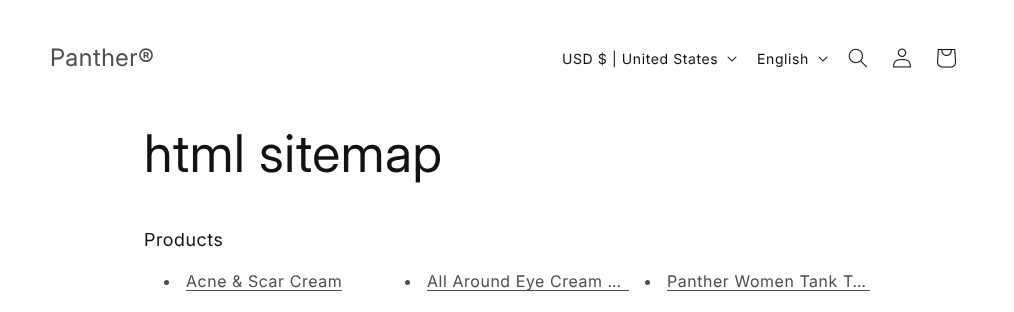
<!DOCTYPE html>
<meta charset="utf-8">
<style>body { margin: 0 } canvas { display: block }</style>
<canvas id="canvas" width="1014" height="312"></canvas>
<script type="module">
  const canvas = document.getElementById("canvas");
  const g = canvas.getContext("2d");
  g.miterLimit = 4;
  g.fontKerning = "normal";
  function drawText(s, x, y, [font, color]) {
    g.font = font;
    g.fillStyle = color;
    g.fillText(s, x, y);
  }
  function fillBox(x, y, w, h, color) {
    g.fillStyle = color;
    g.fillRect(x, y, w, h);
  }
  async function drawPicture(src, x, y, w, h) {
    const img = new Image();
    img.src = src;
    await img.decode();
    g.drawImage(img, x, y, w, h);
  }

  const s1 = ["24px 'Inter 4'", "#4D4D4D"];
  const s2 = ["14px 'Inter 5'", "#121212"];
  const s3 = ["52px Inter", "#121212"];
  const s4 = ["18px 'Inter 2'", "#121212"];
  const s5 = ["16px 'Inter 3'", "#4D4D4D"];

  fillBox(0, 0, 1014, 312, "#FFFFFF");
  g.letterSpacing = "0.6px";
  drawText("Panther®", 50, 66, s1);
  drawText("USD $ | United States", 562, 64, s2);
  await drawPicture("pic1.png", 727, 56, 10, 6);
  drawText("English", 757, 64, s2);
  await drawPicture("pic1.png", 818, 56, 10, 6);
  await drawPicture("pic2.png", 848, 48, 19, 20);
  await drawPicture("pic3.png", 893, 48, 18, 20);
  await drawPicture("pic4.png", 937, 49, 20, 19);
  drawText("html sitemap", 144, 172, s3);
  drawText("Products", 144, 246, s4);
  g.fillStyle = "#4D4D4D";
  g.beginPath();
  g.arc(166.5, 282.5, 2.5, 0, Math.PI * 2);
  g.fill();
  drawText("Acne & Scar Cream", 186, 287, s5);
  fillBox(186, 290, 156, 1, "#4D4D4D");
  g.beginPath();
  g.arc(407.5, 282.5, 2.5, 0, Math.PI * 2);
  g.fill();
  fillBox(427, 290, 202, 1, "#4D4D4D");
  drawText("All Around Eye Cream …", 427, 287, s5);
  g.beginPath();
  g.arc(647.5, 282.5, 2.5, 0, Math.PI * 2);
  g.fill();
  drawText("Panther Women Tank T…", 667, 287, s5);
  fillBox(667, 290, 203, 1, "#4D4D4D");
</script>
